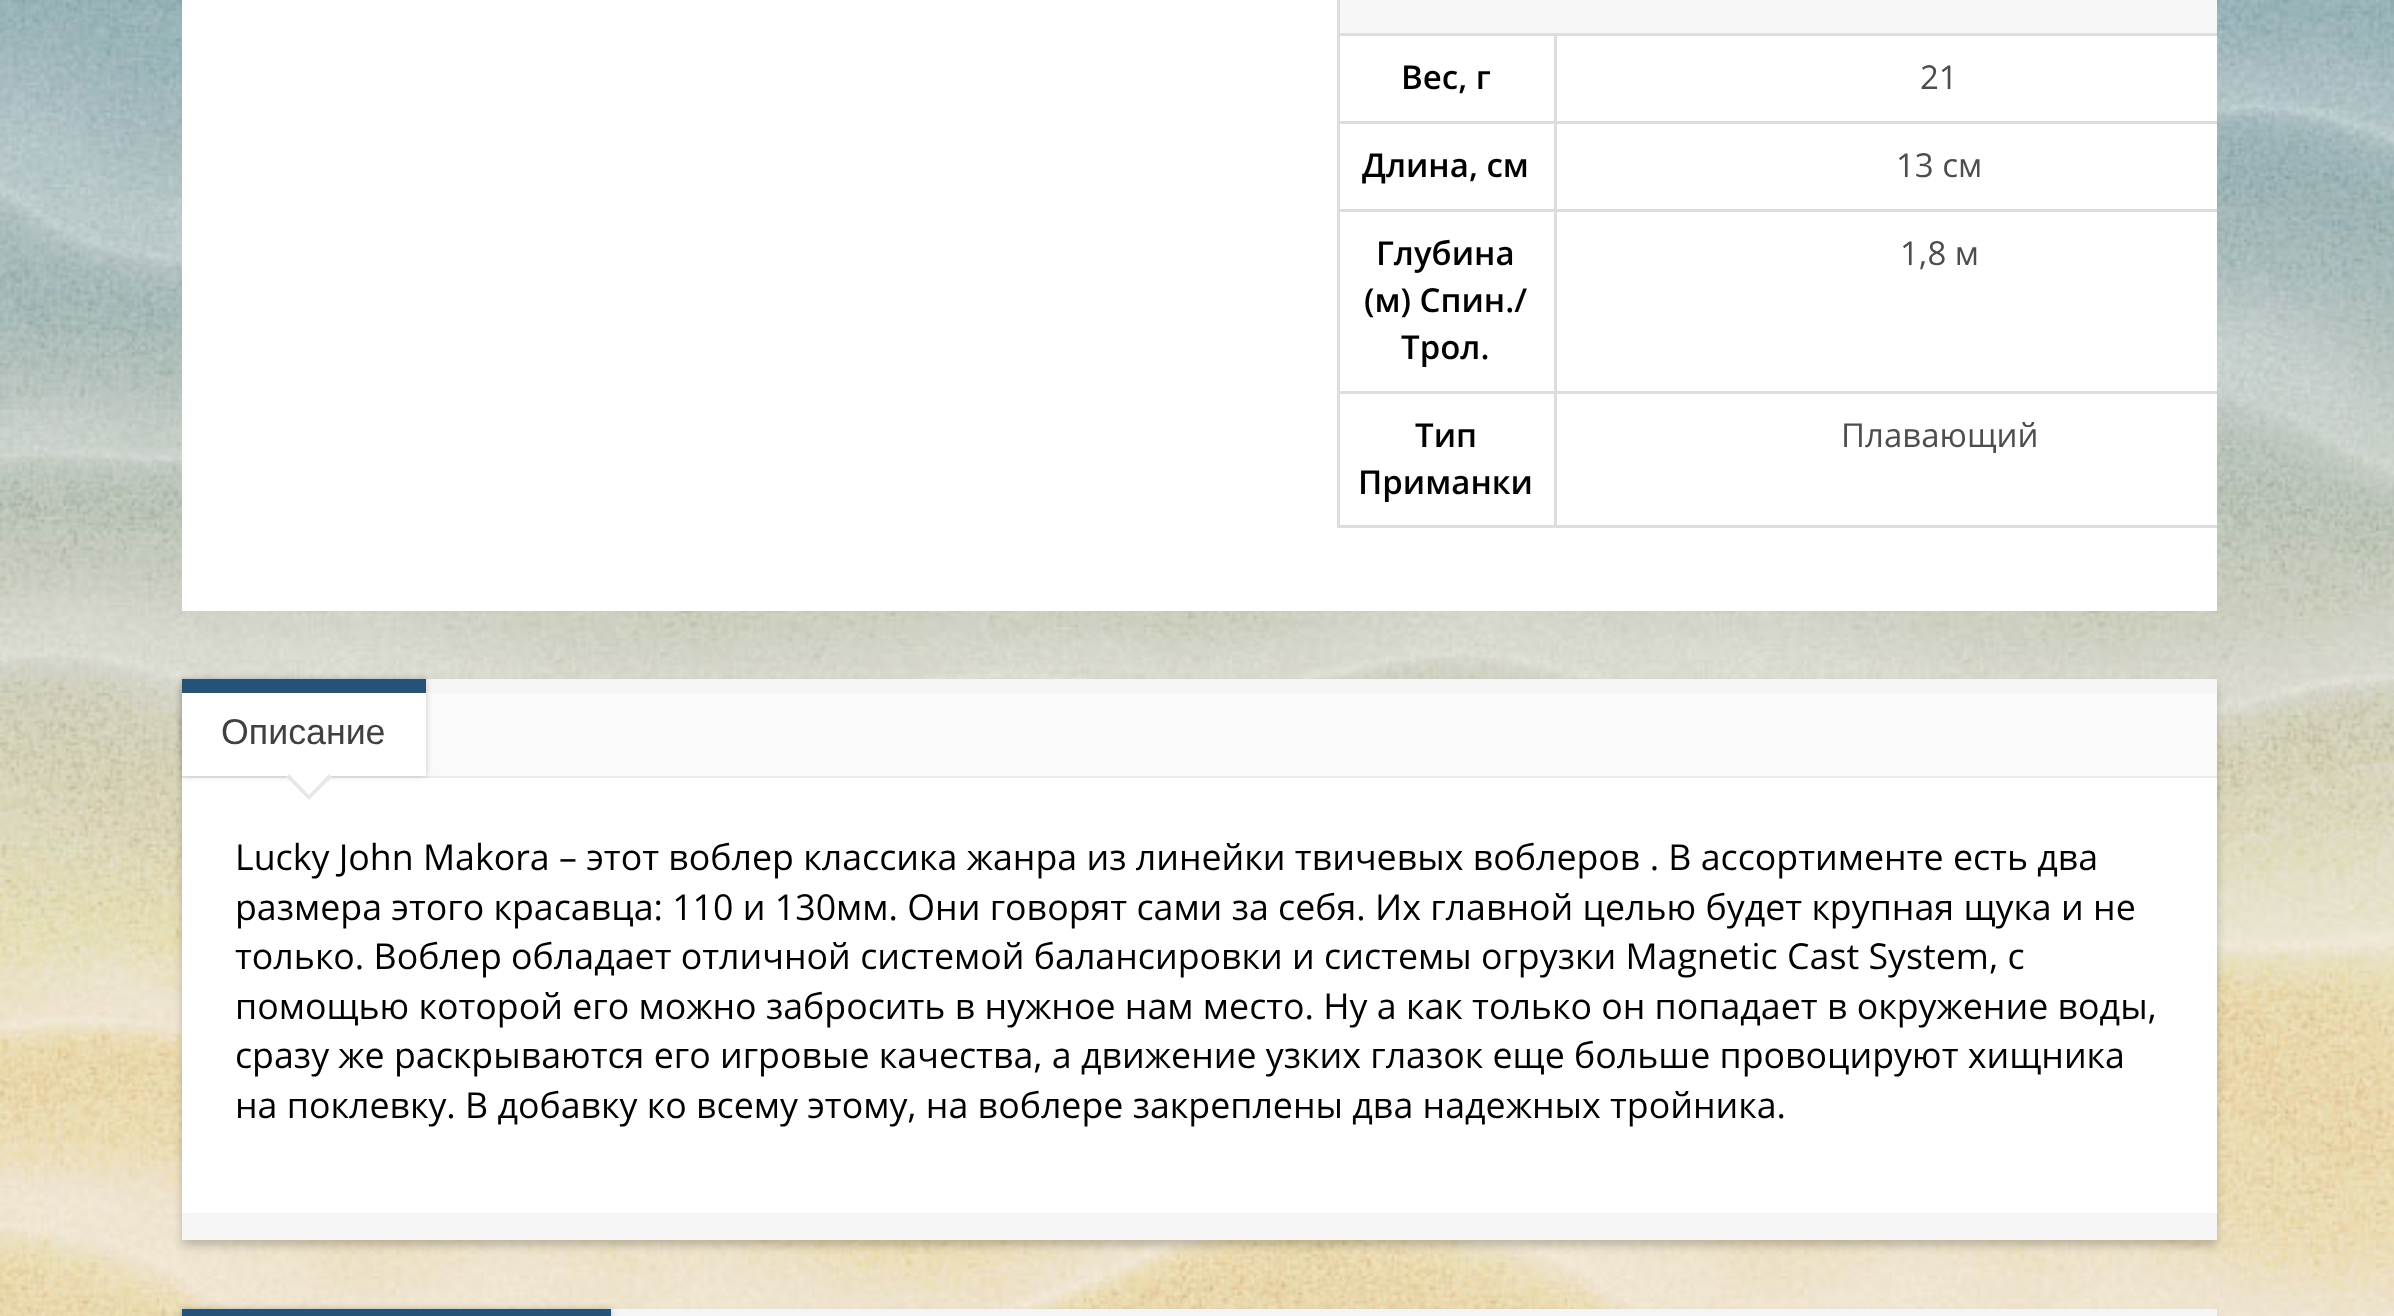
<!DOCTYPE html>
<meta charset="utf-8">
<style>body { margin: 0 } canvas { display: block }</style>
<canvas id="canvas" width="2394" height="1316"></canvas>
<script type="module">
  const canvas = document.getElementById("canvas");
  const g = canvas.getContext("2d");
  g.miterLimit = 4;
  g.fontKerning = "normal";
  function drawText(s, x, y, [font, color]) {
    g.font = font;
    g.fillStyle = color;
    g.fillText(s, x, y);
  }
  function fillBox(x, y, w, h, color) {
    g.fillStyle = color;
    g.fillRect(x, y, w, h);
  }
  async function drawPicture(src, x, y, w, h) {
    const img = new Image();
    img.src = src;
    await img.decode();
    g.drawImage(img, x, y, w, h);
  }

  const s1 = ["600 33px Open Sans", "#000000"];
  const s2 = ["33px Open Sans", "#4D4D4D"];
  const s3 = ["35.75px Liberation Sans", "#404040"];
  const s4 = ["35.75px Open Sans", "#000000"];

  fillBox(0, 0, 2394, 1316, "#FFFFFF");
  await drawPicture("pic1.png", 0, 0, 2394, 1316);
  fillBox(182, 0, 2035, 611, "#FFFFFF");
  fillBox(1340, 0, 877, 33, "#F7F7F7");
  fillBox(1554, 33, 663, 3, "#DDDDDD");
  fillBox(1554, 121, 663, 3, "#DDDDDD");
  fillBox(1554, 209, 663, 3, "#DDDDDD");
  fillBox(1554, 391, 663, 3, "#DDDDDD");
  fillBox(1554, 525, 663, 3, "#DDDDDD");
  fillBox(1554, 391, 3, 137, "#DDDDDD");
  fillBox(1337, 391, 220, 3, "#DDDDDD");
  fillBox(1554, 209, 3, 184, "#DDDDDD");
  fillBox(1337, 209, 220, 3, "#DDDDDD");
  fillBox(1554, 121, 3, 91, "#DDDDDD");
  fillBox(1337, 121, 220, 3, "#DDDDDD");
  fillBox(1554, 33, 3, 91, "#DDDDDD");
  fillBox(1337, 33, 220, 3, "#DDDDDD");
  fillBox(1337, 525, 220, 3, "#DDDDDD");
  fillBox(1337, 391, 3, 137, "#DDDDDD");
  fillBox(1337, 209, 3, 184, "#DDDDDD");
  fillBox(1337, 121, 3, 91, "#DDDDDD");
  fillBox(1337, 0, 3, 124, "#DDDDDD");
  drawText("Вес, г", 1401, 89, s1);
  drawText("21", 1920, 89, s2);
  drawText("Длина, см", 1362, 177, s1);
  drawText("13 см", 1896, 177, s2);
  drawText("Глубина", 1376, 265, s1);
  drawText("(м) Спин./", 1364, 312, s1);
  drawText("Трол.", 1401, 359, s1);
  drawText("1,8 м", 1900, 265, s2);
  drawText("Тип", 1415, 447, s1);
  drawText("Приманки", 1358, 494, s1);
  drawText("Плавающий", 1841, 447, s2);
  g.fillStyle = "rgba(0, 0, 0, 0.2)";
  g.filter = "blur(4px)";
  g.beginPath();
  g.rect(182, 685, 2035, 99);
  g.fill();
  g.filter = "none";
  fillBox(426, 693, 1791, 83, "#FAFAFA");
  fillBox(426, 679, 1791, 14, "#F5F5F5");
  fillBox(182, 776, 2035, 2, "#EEEEEE");
  g.fillStyle = "rgba(0, 0, 0, 0.2)";
  g.filter = "blur(4px)";
  g.beginPath();
  g.rect(182, 784, 2035, 462);
  g.fill();
  g.filter = "none";
  fillBox(182, 778, 2035, 435, "#FFFFFF");
  g.fillStyle = "rgba(0, 0, 0, 0.2)";
  g.filter = "blur(3px)";
  g.beginPath();
  g.rect(182, 679, 244, 97);
  g.fill();
  g.filter = "none";
  fillBox(182, 693, 244, 83, "#FFFFFF");
  fillBox(182, 679, 244, 14, "#275278");
  drawText("Описание", 221, 744, s3);
  g.fillStyle = "#E7E7E7";
  g.beginPath();
  g.moveTo(309, 754);
  g.lineTo(332, 777);
  g.lineTo(309, 800);
  g.lineTo(286, 777);
  g.closePath();
  g.fill();
  g.fillStyle = "#FFFFFF";
  g.beginPath();
  g.moveTo(309, 748);
  g.lineTo(332, 771);
  g.lineTo(309, 795);
  g.lineTo(286, 771);
  g.closePath();
  g.fill();
  fillBox(182, 1213, 2035, 27, "#F5F5F5");
  drawText("Lucky John Makora – этот воблер классика жанра из линейки твичевых воблеров . В ассортименте есть два", 235, 870, s4);
  drawText("размера этого красавца: 110 и 130мм. Они говорят сами за себя. Их главной целью будет крупная щука и не", 235, 920, s4);
  drawText("только. Воблер обладает отличной системой балансировки и системы огрузки Magnetic Cast System, с", 235, 969, s4);
  drawText("помощью которой его можно забросить в нужное нам место. Ну а как только он попадает в окружение воды,", 235, 1019, s4);
  drawText("сразу же раскрываются его игровые качества, а движение узких глазок еще больше провоцируют хищника", 235, 1068, s4);
  drawText("на поклевку. В добавку ко всему этому, на воблере закреплены два надежных тройника.", 235, 1118, s4);
  g.fillStyle = "rgba(0, 0, 0, 0.2)";
  g.filter = "blur(4px)";
  g.beginPath();
  g.rect(182, 1315, 2035, 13);
  g.fill();
  g.filter = "none";
  fillBox(611, 1309, 1606, 7, "#F5F5F5");
  g.fillStyle = "rgba(0, 0, 0, 0.2)";
  g.filter = "blur(3px)";
  g.beginPath();
  g.rect(182, 1309, 429, 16);
  g.fill();
  g.filter = "none";
  fillBox(182, 1309, 429, 7, "#275278");
</script>
